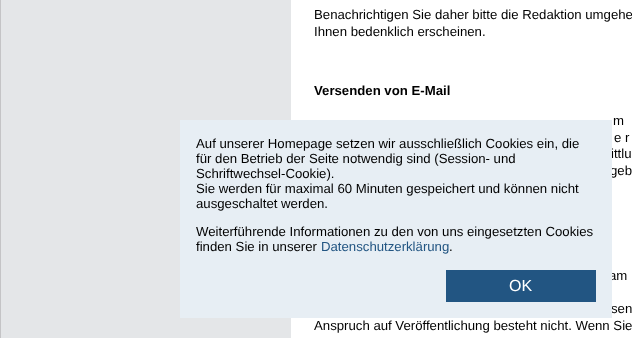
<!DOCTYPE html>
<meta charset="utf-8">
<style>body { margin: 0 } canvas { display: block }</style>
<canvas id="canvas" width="632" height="338"></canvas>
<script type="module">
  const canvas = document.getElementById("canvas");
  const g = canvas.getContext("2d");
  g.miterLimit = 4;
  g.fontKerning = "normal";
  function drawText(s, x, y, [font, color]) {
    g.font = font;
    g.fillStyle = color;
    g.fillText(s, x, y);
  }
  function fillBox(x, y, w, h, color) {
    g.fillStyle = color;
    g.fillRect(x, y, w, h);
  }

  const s1 = ["13.2px Liberation Sans", "#000000"];
  const s2 = ["bold 13.2px Liberation Sans", "#000000"];
  const s3 = ["13.2px Liberation Sans", "#225582"];
  const s4 = ["16px Liberation Sans", "#FFFFFF"];

  fillBox(0, 0, 632, 338, "#E4E6E8");
  g.strokeStyle = "#C4C4C6";
  g.strokeRect(0.5, -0.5, 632, 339);
  fillBox(291, 0, 341, 338, "#FFFFFF");
  drawText("Benachrichtigen Sie daher bitte die Redaktion umgehe", 314, 19, s1);
  drawText("Ihnen bedenklich erscheinen.", 314, 36, s1);
  drawText("Versenden von E-Mail", 314, 95, s2);
  drawText("m", 613, 125, s1);
  drawText("e r", 614, 142, s1);
  drawText("ittlu", 611, 158, s1);
  drawText("geb", 610, 175, s1);
  drawText("am", 609, 280, s1);
  drawText("sen", 611, 313, s1);
  drawText("Anspruch auf Veröffentlichung besteht nicht. Wenn Sie", 314, 330, s1);
  fillBox(180, 120, 432, 198, "#E7EEF4");
  drawText("Auf unserer Homepage setzen wir ausschließlich Cookies ein, die", 196, 148, s1);
  drawText("für den Betrieb der Seite notwendig sind (Session- und", 196, 163, s1);
  drawText("Schriftwechsel-Cookie).", 196, 178, s1);
  drawText("Sie werden für maximal 60 Minuten gespeichert und können nicht", 196, 193, s1);
  drawText("ausgeschaltet werden.", 196, 208, s1);
  drawText("Weiterführende Informationen zu den von uns eingesetzten Cookies", 196, 236, s1);
  drawText("finden Sie in unserer", 196, 251, s1);
  drawText("Datenschutzerklärung", 321, 251, s3);
  drawText(".", 449, 251, s1);
  fillBox(446, 270, 150, 32, "#225582");
  drawText("OK", 509, 291, s4);
</script>
